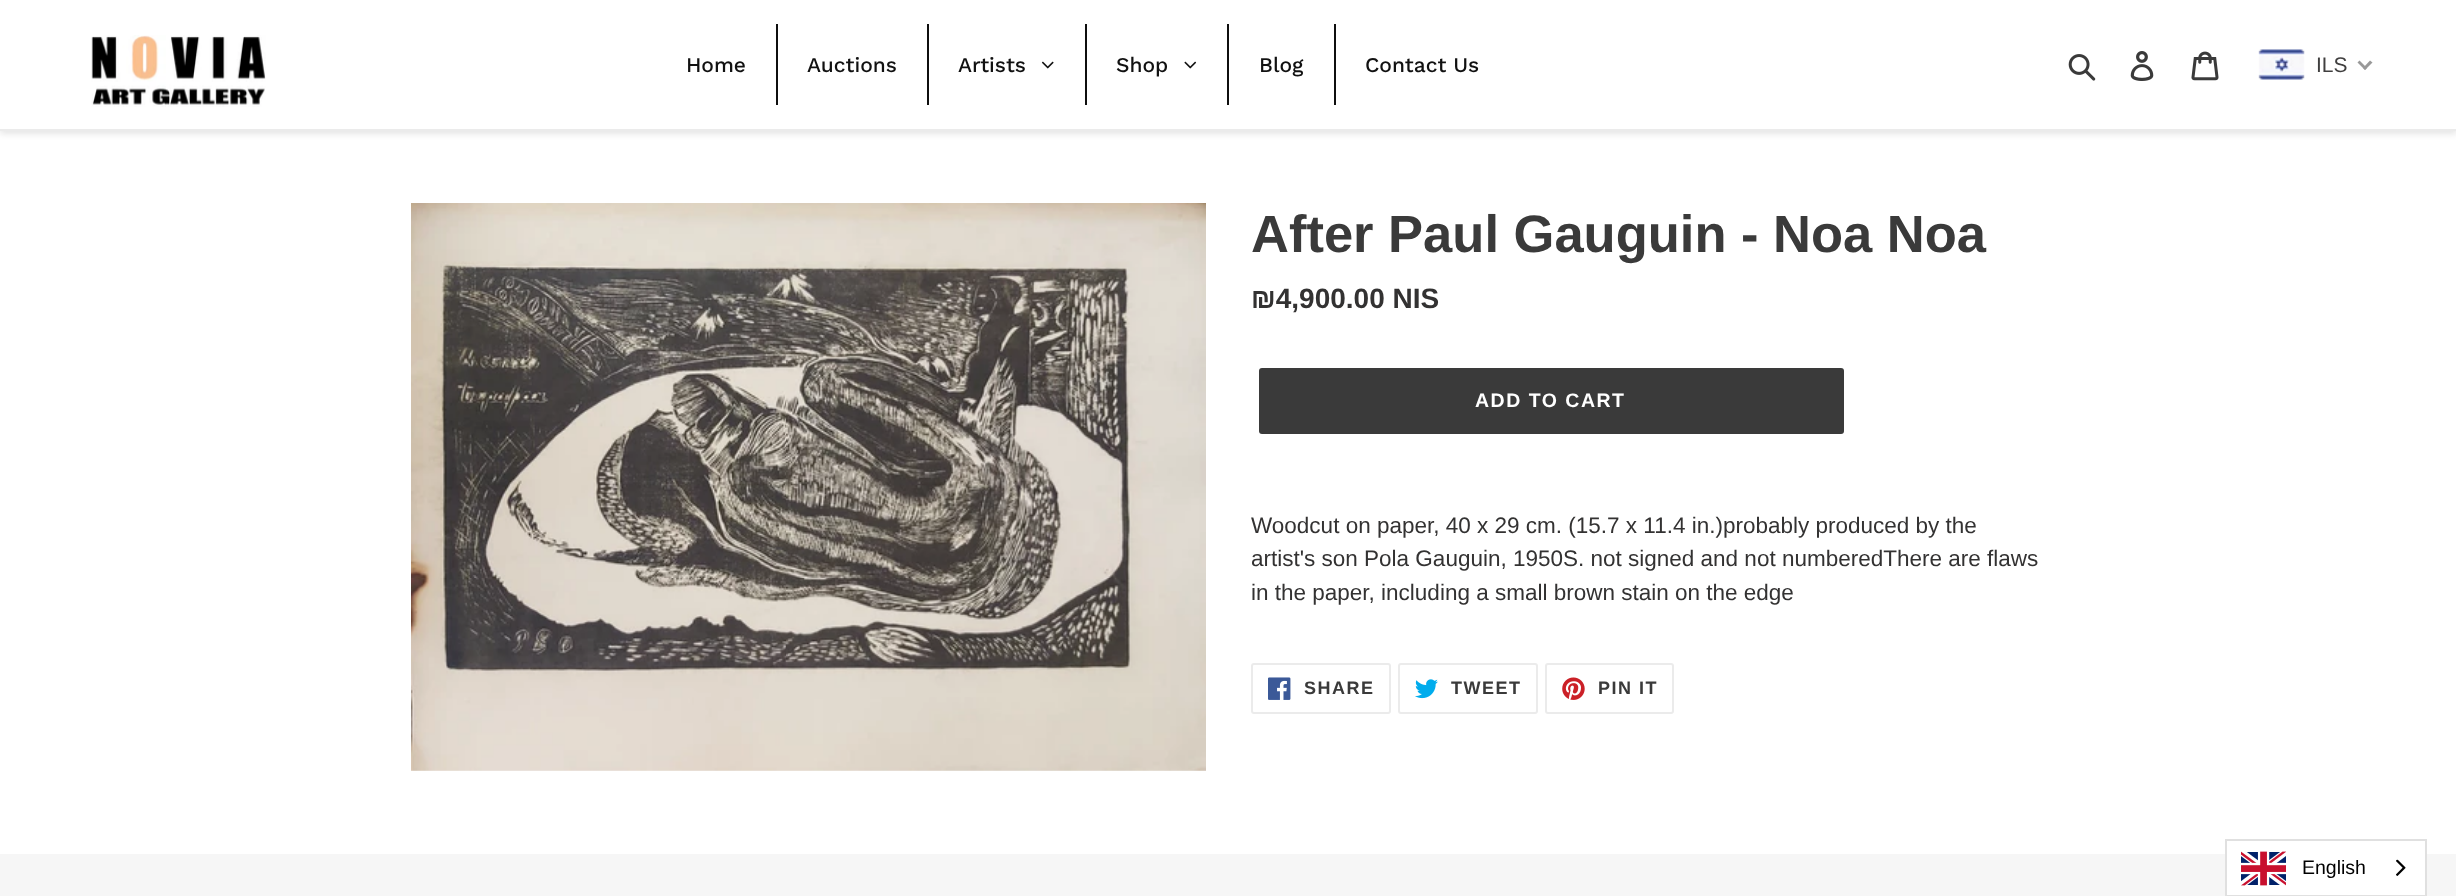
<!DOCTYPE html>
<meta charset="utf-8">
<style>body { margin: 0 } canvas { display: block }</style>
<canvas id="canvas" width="2456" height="896"></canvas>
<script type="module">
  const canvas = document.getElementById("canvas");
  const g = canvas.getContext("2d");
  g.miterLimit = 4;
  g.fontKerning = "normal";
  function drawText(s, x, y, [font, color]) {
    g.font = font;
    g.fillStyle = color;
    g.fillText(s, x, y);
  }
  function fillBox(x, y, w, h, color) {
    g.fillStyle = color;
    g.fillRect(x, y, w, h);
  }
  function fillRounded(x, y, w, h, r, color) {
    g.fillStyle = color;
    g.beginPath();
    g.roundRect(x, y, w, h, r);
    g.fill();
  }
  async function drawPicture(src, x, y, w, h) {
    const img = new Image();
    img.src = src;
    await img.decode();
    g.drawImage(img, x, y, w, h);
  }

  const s1 = ["500 21px Work Sans", "#111111"];
  const s2 = ["21px Liberation Sans", "#403F3F"];
  const s3 = ["bold 52.5px Liberation Sans", "#3A3A3A"];
  const s4 = ["bold 28px Liberation Sans", "#333232"];
  const s5 = ["bold 19.5px Liberation Sans", "#FFFFFF"];
  const s6 = ["22.5px Liberation Sans", "#333232"];
  const s7 = ["bold 18px Liberation Sans", "#3A3A3A"];
  const s8 = ["19.5px Liberation Sans", "#000000"];

  fillBox(0, 0, 2456, 896, "#FFFFFF");
  g.fillStyle = "rgba(0, 0, 0, 0.1)";
  g.filter = "blur(3px)";
  g.beginPath();
  g.rect(0, 3, 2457, 131);
  g.fill();
  g.filter = "none";
  fillBox(0, 0, 2456, 129, "#FFFFFF");
  fillBox(0, 129, 2456, 2, "#EBEBEB");
  await drawPicture("pic1.png", 91, 35, 175, 72);
  drawText("Home", 686, 72, s1);
  fillBox(776, 24, 2, 81, "#0F0F0F");
  drawText("Auctions", 807, 72, s1);
  fillBox(927, 24, 2, 81, "#0F0F0F");
  drawText("Artists", 958, 72, s1);
  await drawPicture("pic2.png", 1041, 61, 13, 8);
  fillBox(1085, 24, 2, 81, "#0F0F0F");
  drawText("Shop", 1116, 72, s1);
  await drawPicture("pic3.png", 1184, 61, 13, 8);
  fillBox(1227, 24, 2, 81, "#0F0F0F");
  drawText("Blog", 1259, 72, s1);
  fillBox(1334, 24, 2, 81, "#0F0F0F");
  drawText("Contact Us", 1365, 72, s1);
  await drawPicture("pic4.png", 2068, 54, 28, 27);
  await drawPicture("pic5.png", 2130, 51, 24, 30);
  await drawPicture("pic6.png", 2191, 51, 28, 30);
  await drawPicture("pic7.png", 2258, 49, 47, 31);
  drawText("ILS", 2316, 72, s2);
  g.fillStyle = "#999999";
  g.beginPath();
  g.moveTo(2370, 60.5);
  g.lineTo(2372.5, 62.5);
  g.lineTo(2365, 70);
  g.lineTo(2363, 68);
  g.closePath();
  g.fill();
  g.beginPath();
  g.moveTo(2359.5, 60.5);
  g.lineTo(2367, 68);
  g.lineTo(2365, 70);
  g.lineTo(2357.5, 62.5);
  g.closePath();
  g.fill();
  await drawPicture("pic8.png", 411, 203, 795, 568);
  drawText("After Paul Gauguin - Noa Noa", 1251, 252, s3);
  drawText("₪4,900.00 NIS", 1251, 308, s4);
  fillRounded(1259, 368, 585, 66, 3, "#3A3A3A");
  g.letterSpacing = "1.5px";
  drawText("ADD TO CART", 1475, 407, s5);
  g.letterSpacing = "0px";
  drawText("Woodcut on paper, 40 x 29 cm. (15.7 x 11.4 in.)probably produced by the", 1251, 533, s6);
  drawText("artist's son Pola Gauguin, 1950S. not signed and not numberedThere are flaws", 1251, 566, s6);
  drawText("in the paper, including a small brown stain on the edge", 1251, 600, s6);
  g.beginPath();
  g.roundRect(1252, 664, 138, 49, 2);
  g.strokeStyle = "#EBEBEB";
  g.lineWidth = 2;
  g.stroke();
  await drawPicture("pic9.png", 1268, 677, 23, 23);
  g.letterSpacing = "1.5px";
  drawText("SHARE", 1304, 694, s7);
  g.beginPath();
  g.roundRect(1399, 664, 138, 49, 2);
  g.stroke();
  await drawPicture("pic10.png", 1415, 679, 23, 20);
  drawText("TWEET", 1451, 694, s7);
  g.beginPath();
  g.roundRect(1546, 664, 127, 49, 2);
  g.stroke();
  await drawPicture("pic11.png", 1562, 677, 23, 23);
  drawText("PIN IT", 1598, 694, s7);
  fillBox(0, 854, 2456, 42, "#F6F6F6");
  fillBox(2227, 854, 198, 41, "#FFFFFF");
  g.strokeStyle = "#E0E0E0";
  g.strokeRect(2226, 840, 200, 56);
  await drawPicture("pic12.png", 2241, 851, 45, 35);
  g.letterSpacing = "0px";
  drawText("English", 2302, 874, s8);
  await drawPicture("pic13.png", 2396, 859, 10, 17);
</script>
